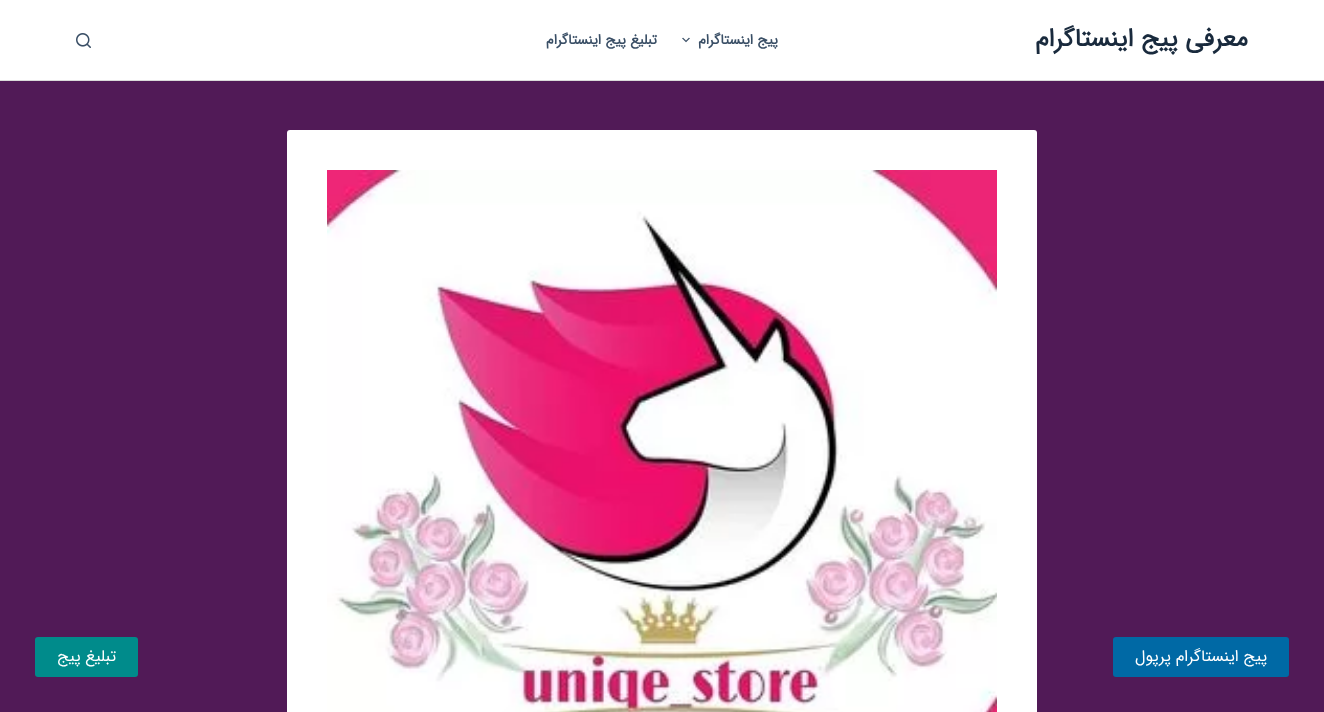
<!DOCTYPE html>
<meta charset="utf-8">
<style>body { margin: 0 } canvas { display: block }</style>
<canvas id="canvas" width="1324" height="712"></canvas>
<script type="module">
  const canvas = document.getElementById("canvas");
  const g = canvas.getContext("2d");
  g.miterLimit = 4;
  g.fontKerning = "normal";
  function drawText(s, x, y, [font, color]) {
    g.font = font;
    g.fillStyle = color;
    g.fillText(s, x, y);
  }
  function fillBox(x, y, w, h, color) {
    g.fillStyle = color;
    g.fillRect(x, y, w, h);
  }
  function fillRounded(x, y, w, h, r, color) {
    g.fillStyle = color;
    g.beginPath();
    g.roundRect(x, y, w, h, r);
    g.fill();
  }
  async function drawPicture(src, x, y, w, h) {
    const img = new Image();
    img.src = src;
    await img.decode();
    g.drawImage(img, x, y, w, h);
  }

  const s1 = ["bold 25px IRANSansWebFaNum", "#192A3D"];
  const s2 = ["bold 14px IRANSansWebFaNum", "#3A4F66"];
  const s3 = ["16px IRANSansWebFaNum", "#FFFFFF"];

  fillBox(0, 0, 1324, 712, "#511A57");
  fillBox(0, 80, 1324, 1, "#DADADA");
  fillBox(0, 0, 1324, 80, "#FFFFFF");
  g.direction = "rtl";
  drawText("معرفی پیج اینستاگرام", 1248, 46, s1);
  drawText("پیج اینستاگرام", 778, 44, s2);
  await drawPicture("pic1.png", 682, 37, 8, 6);
  drawText("تبلیغ پیج اینستاگرام", 657, 44, s2);
  await drawPicture("pic2.png", 76, 33, 15, 15);
  fillRounded(287, 130, 750, 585, 3, "#FFFFFF");
  await drawPicture("pic3.png", 327, 170, 670, 542);
  fillRounded(1113, 637, 176, 40, 3, "#0069A5");
  drawText("پیج اینستاگرام پرپول", 1267, 661, s3);
  fillRounded(35, 637, 103, 40, 3, "#008B8B");
  drawText("تبلیغ پیج", 116, 661, s3);
</script>
